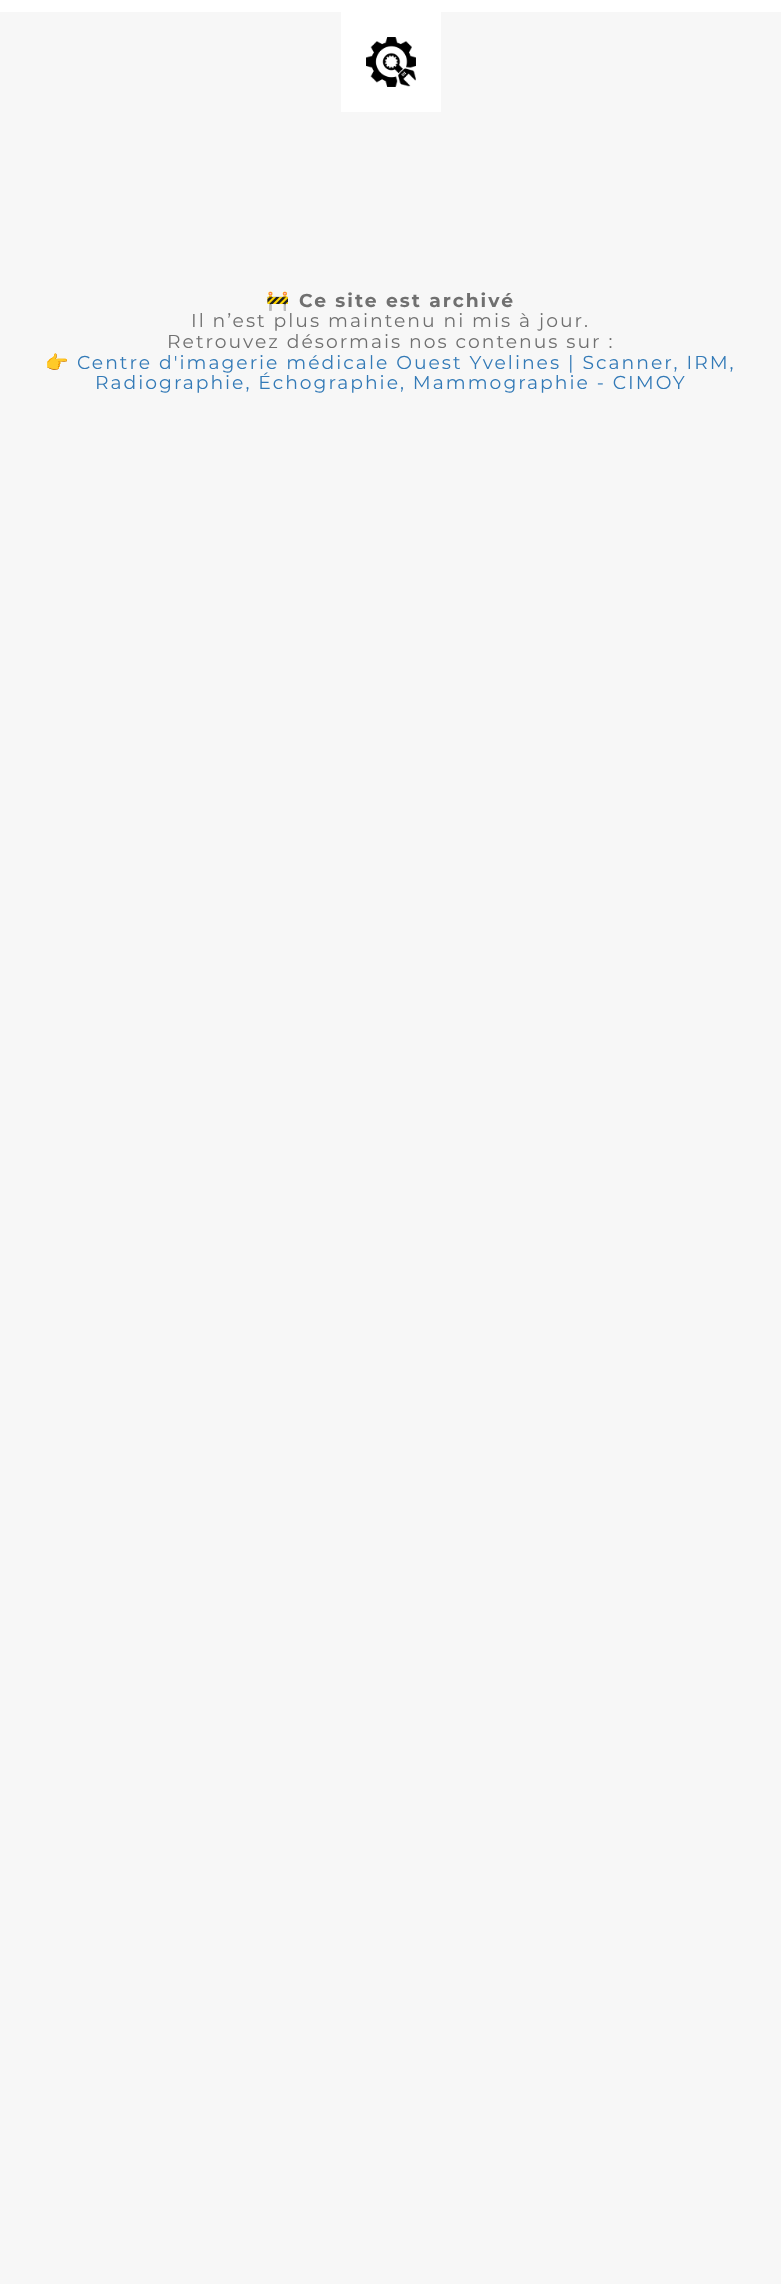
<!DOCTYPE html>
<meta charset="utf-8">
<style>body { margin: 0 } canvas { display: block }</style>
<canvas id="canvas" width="781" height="2284"></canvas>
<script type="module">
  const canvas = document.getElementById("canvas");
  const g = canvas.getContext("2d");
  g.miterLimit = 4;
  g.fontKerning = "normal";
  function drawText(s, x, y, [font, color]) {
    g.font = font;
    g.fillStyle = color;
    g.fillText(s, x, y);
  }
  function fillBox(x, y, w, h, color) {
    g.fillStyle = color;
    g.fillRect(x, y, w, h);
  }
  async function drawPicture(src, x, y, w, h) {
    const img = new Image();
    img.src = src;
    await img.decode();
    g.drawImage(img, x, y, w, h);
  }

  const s1 = ["18.75px Noto Color Emoji", "#707070"];
  const s2 = ["100 18.75px Montserrat", "#707070"];
  const s3 = ["100 18.75px 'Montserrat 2'", "#707070"];
  const s4 = ["100 18.75px 'Montserrat 2'", "#337AB7"];

  fillBox(0, 0, 781, 2284, "#F7F7F7");
  fillBox(0, 0, 781, 12, "#FFFFFF");
  fillBox(341, 12, 100, 100, "#FFFFFF");
  await drawPicture("pic1.png", 366, 37, 50, 50);
  g.letterSpacing = "2px";
  drawText("🚧", 266, 307, s1);
  drawText("Ce site est archivé", 299, 307, s2);
  drawText("Il n’est plus maintenu ni mis à jour.", 191, 327, s3);
  drawText("Retrouvez désormais nos contenus sur :", 167, 348, s3);
  drawText("👉", 45, 369, s1);
  drawText("Centre d'imagerie médicale Ouest Yvelines | Scanner, IRM,", 77, 369, s4);
  drawText("Radiographie, Échographie, Mammographie - CIMOY", 95, 389, s4);
</script>
